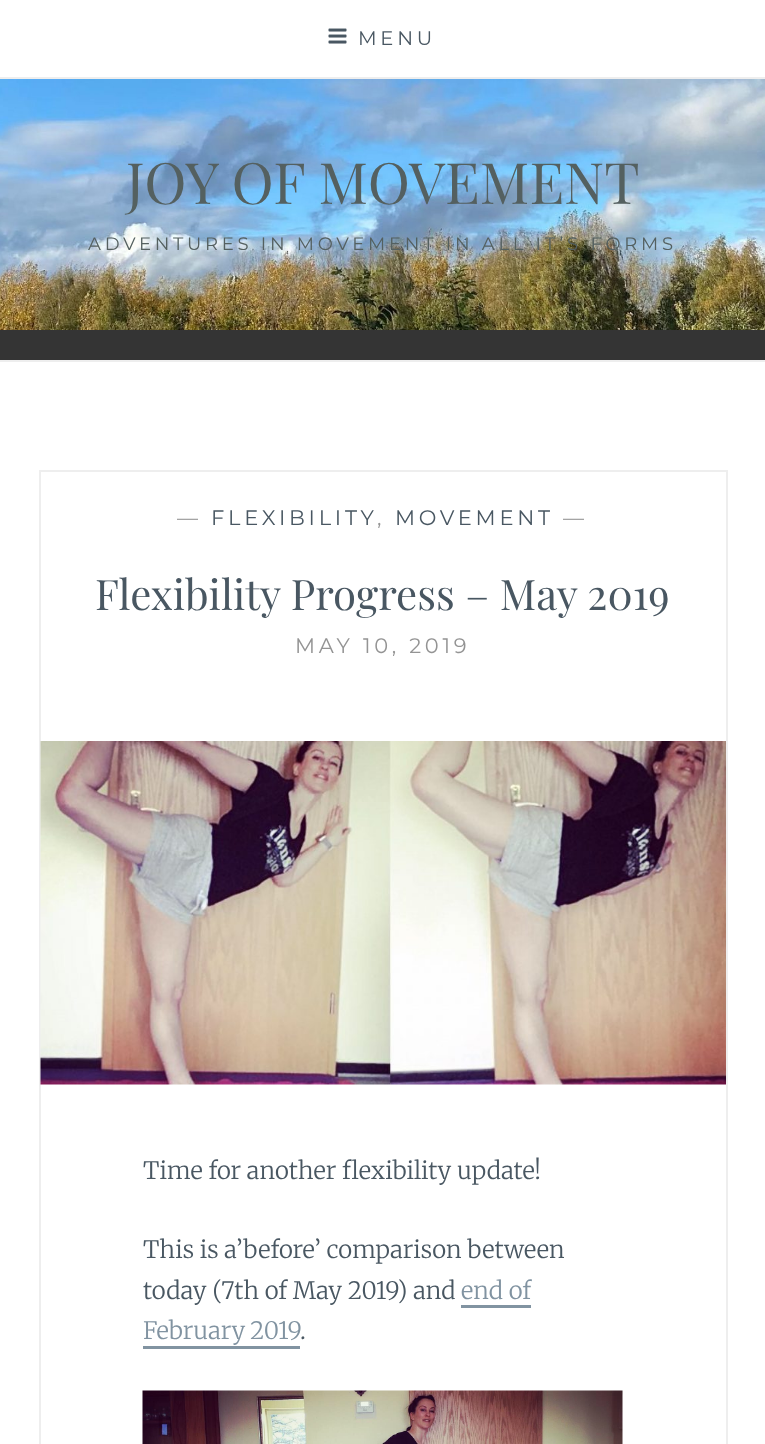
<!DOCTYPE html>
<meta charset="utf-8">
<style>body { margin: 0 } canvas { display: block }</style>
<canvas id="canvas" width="765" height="1444"></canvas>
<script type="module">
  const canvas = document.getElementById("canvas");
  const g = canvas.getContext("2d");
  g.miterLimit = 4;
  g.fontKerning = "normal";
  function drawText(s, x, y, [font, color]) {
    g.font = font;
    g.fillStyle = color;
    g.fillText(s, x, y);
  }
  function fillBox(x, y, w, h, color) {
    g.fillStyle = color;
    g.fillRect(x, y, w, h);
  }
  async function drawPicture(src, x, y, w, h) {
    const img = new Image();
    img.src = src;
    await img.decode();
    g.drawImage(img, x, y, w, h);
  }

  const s1 = ["19.5px Montserrat", "#495762"];
  const s2 = ["57px Playfair Display", "#546060"];
  const s3 = ["18px Montserrat", "#546060"];
  const s4 = ["21px Montserrat", "#949494"];
  const s5 = ["21px Montserrat", "#495762"];
  const s6 = ["42px Playfair Display", "#495762"];
  const s7 = ["300 24px Merriweather", "#495762"];
  const s8 = ["300 24px Merriweather", "#8193A1"];

  fillBox(0, 0, 765, 1444, "#FFFFFF");
  fillBox(0, 77, 765, 2, "#EEEEEE");
  await drawPicture("pic1.png", 328, 28, 19, 16);
  g.letterSpacing = "3.75px";
  drawText("MENU", 358, 45, s1);
  fillBox(0, 330, 765, 30, "#343434");
  await drawPicture("pic2.png", 0, 79, 765, 251);
  g.letterSpacing = "0px";
  drawText("JOY OF MOVEMENT", 126, 204, s2);
  g.letterSpacing = "3.75px";
  drawText("ADVENTURES IN MOVEMENT IN ALL IT’S FORMS", 88, 250, s3);
  fillBox(0, 360, 765, 2, "#EEEEEE");
  g.strokeStyle = "#EEEEEE";
  g.lineWidth = 2;
  g.strokeRect(40, 471, 687, 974);
  drawText("—", 177, 525, s4);
  drawText("FLEXIBILITY", 211, 525, s5);
  drawText("MOVEMENT", 395, 525, s5);
  drawText("—", 563, 525, s4);
  drawText(",", 377, 525, s4);
  g.letterSpacing = "0px";
  drawText("Flexibility Progress – May 2019", 95, 610, s6);
  g.letterSpacing = "3.75px";
  drawText("MAY 10, 2019", 295, 653, s4);
  await drawPicture("pic3.png", 40, 741, 686, 344);
  g.letterSpacing = "0px";
  drawText("Time for another flexibility update!", 143, 1179, s7);
  drawText("This is a’before’ comparison between", 143, 1258, s7);
  drawText("today (7th of May 2019) and", 143, 1299, s7);
  drawText("end of", 461, 1299, s8);
  fillBox(461, 1305, 70, 3, "#8193A1");
  g.wordSpacing = "-1px";
  drawText("February 2019", 143, 1339, s8);
  fillBox(143, 1346, 157, 3, "#8193A1");
  g.wordSpacing = "0px";
  drawText(".", 300, 1339, s7);
  await drawPicture("pic4.png", 142, 1390, 481, 54);
</script>
